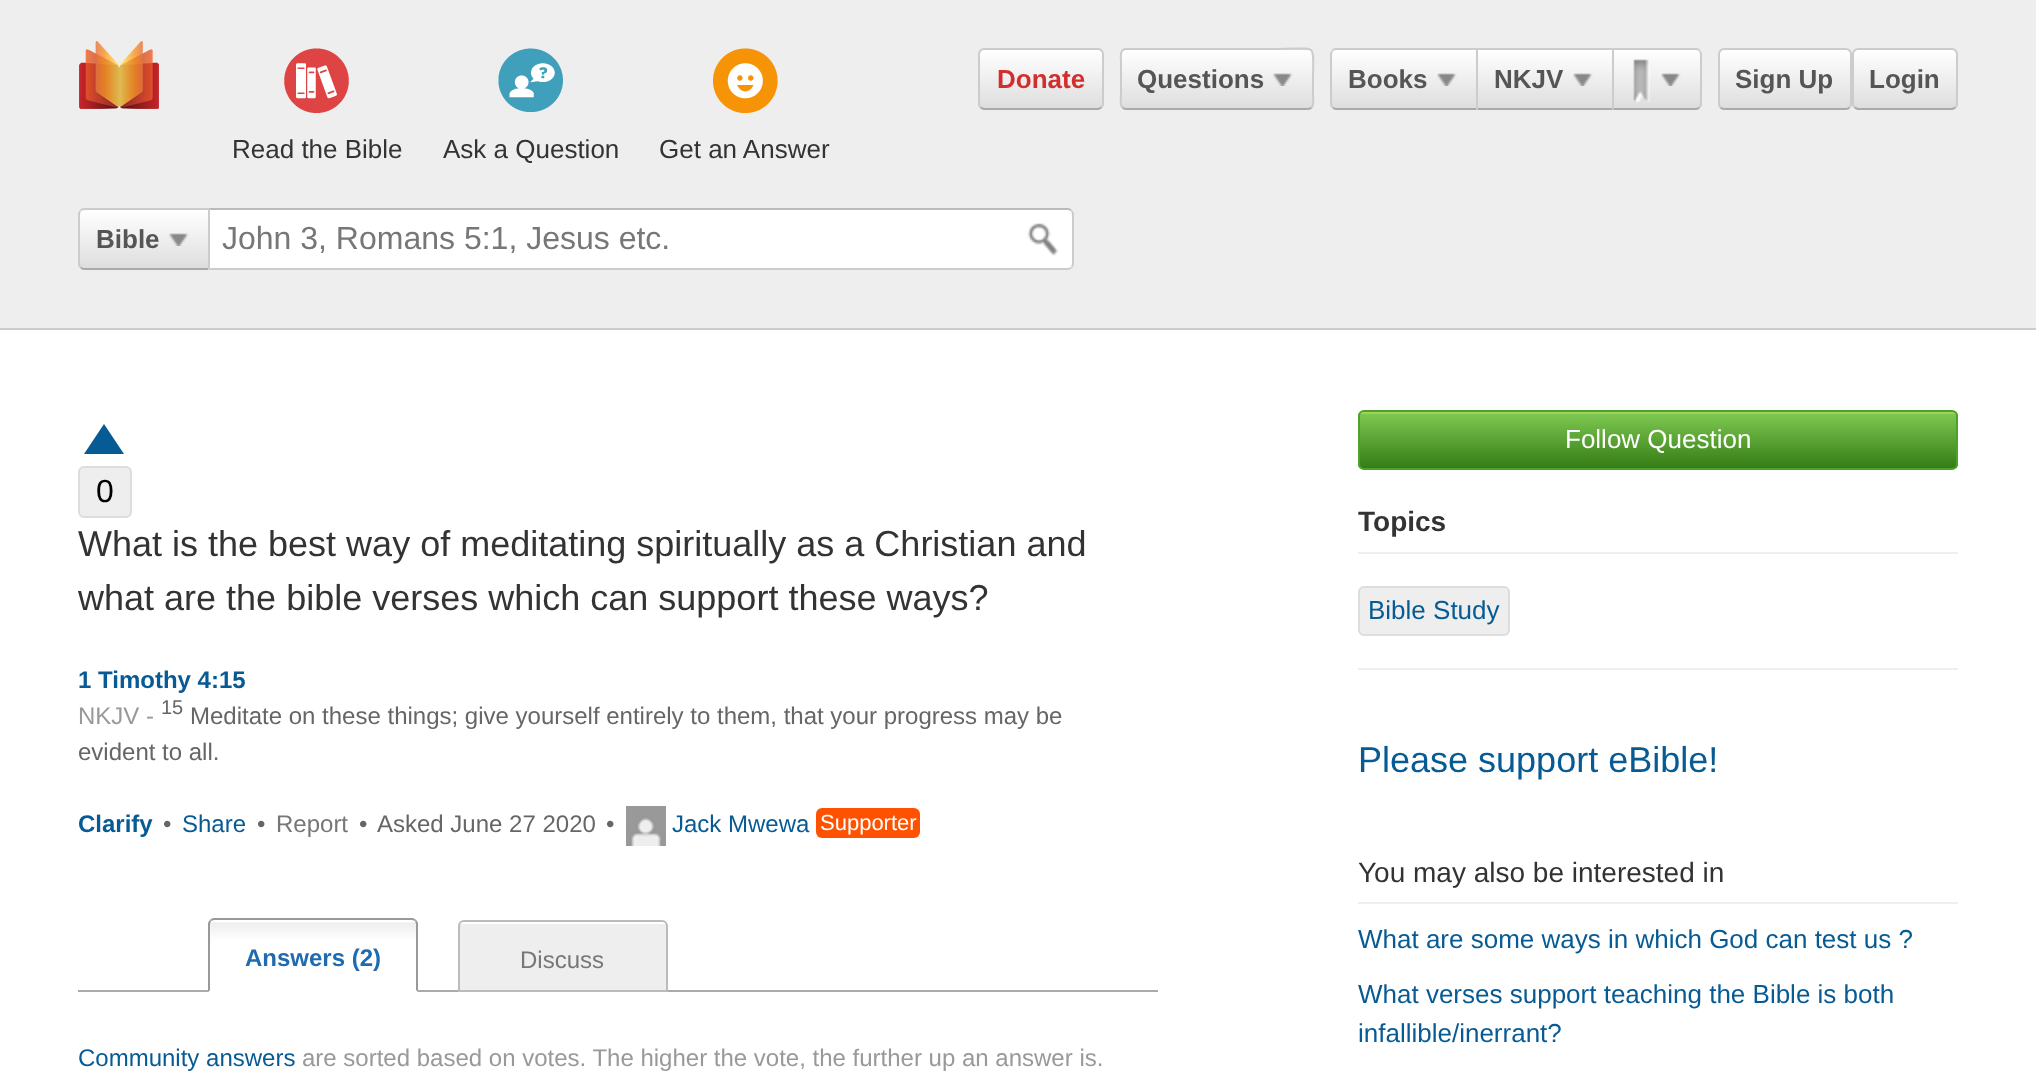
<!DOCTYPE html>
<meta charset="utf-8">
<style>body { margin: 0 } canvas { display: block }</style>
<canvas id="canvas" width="2036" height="1081"></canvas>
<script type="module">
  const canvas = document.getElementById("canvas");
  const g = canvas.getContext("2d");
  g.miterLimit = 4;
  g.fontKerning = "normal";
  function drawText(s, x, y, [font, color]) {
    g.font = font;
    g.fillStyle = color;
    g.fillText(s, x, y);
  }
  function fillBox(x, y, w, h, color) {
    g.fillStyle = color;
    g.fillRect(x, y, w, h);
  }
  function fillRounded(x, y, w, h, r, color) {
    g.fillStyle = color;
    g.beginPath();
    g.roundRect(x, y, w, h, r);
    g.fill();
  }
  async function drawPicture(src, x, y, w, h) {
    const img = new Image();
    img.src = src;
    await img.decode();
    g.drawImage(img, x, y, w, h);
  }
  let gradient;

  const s1 = ["bold 26px Liberation Sans", "#D22E2E"];
  const s2 = ["bold 26px Liberation Sans", "#555555"];
  const s3 = ["26px Liberation Sans", "#333333"];
  const s4 = ["32px Liberation Sans", "#777777"];
  const s5 = ["32px Liberation Sans", "#000000"];
  const s6 = ["36px Liberation Sans", "#333333"];
  const s7 = ["bold 24px Liberation Sans", "#075B95"];
  const s8 = ["24px Liberation Sans", "#999999"];
  const s9 = ["20px Liberation Sans", "#666666"];
  const s10 = ["24px Liberation Sans", "#666666"];
  const s11 = ["24px Liberation Sans", "#075B95"];
  const s12 = ["24px Liberation Sans", "#777777"];
  const s13 = ["22px Liberation Sans", "#FFFFFF"];
  const s14 = ["bold 24px Liberation Sans", "#1E6BB2"];
  const s15 = ["26px Liberation Sans", "#FFFFFF"];
  const s16 = ["bold 28px Liberation Sans", "#333333"];
  const s17 = ["26px Liberation Sans", "#075B95"];
  const s18 = ["36px Liberation Sans", "#075B95"];
  const s19 = ["28px Liberation Sans", "#333333"];

  fillBox(0, 0, 2036, 1081, "#FFFFFF");
  fillBox(0, 0, 2036, 328, "#EEEEEE");
  fillBox(0, 328, 2036, 2, "#CCCCCC");
  await drawPicture("pic1.png", 79, 41, 80, 68);
  g.save();
  g.beginPath();
  g.roundRect(978, 48, 126, 62, 6);
  g.clip();
  gradient = g.createLinearGradient(1041, 50, 1041, 108);
  gradient.addColorStop(0, "#FFFFFF");
  gradient.addColorStop(1, "#DEDEDE");
  g.fillStyle = gradient;
  g.fillRect(978, 50, 126, 58);
  gradient = g.createLinearGradient(1041, 108, 1041, 166);
  gradient.addColorStop(0, "#FFFFFF");
  gradient.addColorStop(1, "#DEDEDE");
  g.fillStyle = gradient;
  g.fillRect(978, 108, 126, 2);
  g.restore();
  g.beginPath();
  g.moveTo(1101.5, 107.5);
  g.lineTo(1098.5, 109);
  g.lineTo(983.5, 109);
  g.lineTo(980.5, 107.5);
  g.strokeStyle = "#AAAAAA";
  g.lineWidth = 2;
  g.stroke();
  g.beginPath();
  g.moveTo(980.5, 107.5);
  g.bezierCurveTo(979.5, 106.5, 979, 105.5, 979, 104);
  g.lineTo(979, 54);
  g.bezierCurveTo(979, 52.5, 979.5, 51.5, 980.5, 50.5);
  g.bezierCurveTo(981.5, 49.5, 982.5, 49, 984, 49);
  g.lineTo(1098, 49);
  g.bezierCurveTo(1099.5, 49, 1100.5, 49.5, 1101.5, 50.5);
  g.bezierCurveTo(1102.5, 51.5, 1103, 52.5, 1103, 54);
  g.lineTo(1103, 104);
  g.bezierCurveTo(1103, 105.5, 1102.5, 106.5, 1101.5, 107.5);
  g.strokeStyle = "#CCCCCC";
  g.stroke();
  drawText("Donate", 997, 88, s1);
  g.save();
  g.beginPath();
  g.roundRect(1120, 48, 194, 62, 6);
  g.clip();
  gradient = g.createLinearGradient(1217, -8, 1217, 50);
  gradient.addColorStop(0, "#FFFFFF");
  gradient.addColorStop(1, "#DEDEDE");
  g.fillStyle = gradient;
  g.fillRect(1120, 48, 194, 2);
  gradient = g.createLinearGradient(1217, 50, 1217, 108);
  gradient.addColorStop(0, "#FFFFFF");
  gradient.addColorStop(1, "#DEDEDE");
  g.fillStyle = gradient;
  g.fillRect(1120, 50, 194, 58);
  g.restore();
  g.beginPath();
  g.moveTo(1311.5, 107.5);
  g.bezierCurveTo(1310.5, 108.5, 1309.5, 109, 1308, 109);
  g.lineTo(1126, 109);
  g.bezierCurveTo(1124.5, 109, 1123.5, 108.5, 1122.5, 107.5);
  g.strokeStyle = "#AAAAAA";
  g.stroke();
  g.beginPath();
  g.moveTo(1122.5, 107.5);
  g.bezierCurveTo(1119.5, 105, 1121, 98, 1121, 95.5);
  g.lineTo(1121, 62.5);
  g.bezierCurveTo(1121, 58.5, 1119, 49, 1126, 49);
  g.lineTo(1277.5, 49);
  g.bezierCurveTo(1319, 49, 1313, 41.5, 1313, 79);
  g.lineTo(1313, 95.5);
  g.bezierCurveTo(1313, 98, 1314.5, 105, 1311.5, 107.5);
  g.strokeStyle = "#CCCCCC";
  g.stroke();
  drawText("Questions", 1137, 88, s2);
  await drawPicture("pic2.png", 1273, 73, 20, 13);
  g.save();
  g.beginPath();
  g.roundRect(1330, 48, 148, 62, [6, 0, 0, 6]);
  g.clip();
  gradient = g.createLinearGradient(1404, -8, 1404, 50);
  gradient.addColorStop(0, "#FFFFFF");
  gradient.addColorStop(1, "#DEDEDE");
  g.fillStyle = gradient;
  g.fillRect(1330, 48, 6, 2);
  gradient = g.createLinearGradient(1404, 50, 1404, 108);
  gradient.addColorStop(0, "#FFFFFF");
  gradient.addColorStop(1, "#DEDEDE");
  g.fillStyle = gradient;
  g.fillRect(1330, 50, 146, 58);
  gradient = g.createLinearGradient(1404, 108, 1404, 166);
  gradient.addColorStop(0, "#FFFFFF");
  gradient.addColorStop(1, "#DEDEDE");
  g.fillStyle = gradient;
  g.fillRect(1330, 108, 6, 2);
  g.restore();
  g.fillStyle = "#CCCCCC";
  g.beginPath();
  g.moveTo(1336, 48);
  g.bezierCurveTo(1334, 48, 1333, 49, 1332, 50);
  g.lineTo(1333, 51);
  g.lineTo(1336, 50);
  g.lineTo(1476, 50);
  g.lineTo(1478, 48);
  g.closePath();
  g.fill();
  g.fillStyle = "#AAAAAA";
  g.beginPath();
  g.moveTo(1478, 110);
  g.lineTo(1476, 108);
  g.lineTo(1336, 108);
  g.lineTo(1333, 107);
  g.lineTo(1332, 108);
  g.bezierCurveTo(1333, 109, 1334, 110, 1336, 110);
  g.closePath();
  g.fill();
  g.fillStyle = "#CCCCCC";
  g.beginPath();
  g.moveTo(1330, 54);
  g.lineTo(1330, 104);
  g.bezierCurveTo(1330, 106, 1331, 107, 1332, 108);
  g.lineTo(1333, 107);
  g.lineTo(1332, 104);
  g.lineTo(1332, 54);
  g.lineTo(1333, 51);
  g.lineTo(1332, 50);
  g.bezierCurveTo(1331, 51, 1330, 52, 1330, 54);
  g.closePath();
  g.fill();
  drawText("Books", 1348, 88, s2);
  await drawPicture("pic2.png", 1437, 73, 20, 13);
  gradient = g.createLinearGradient(1545, 50, 1545, 108);
  gradient.addColorStop(0, "#FFFFFF");
  gradient.addColorStop(1, "#DEDEDE");
  g.fillStyle = gradient;
  g.fillRect(1478, 50, 134, 58);
  fillBox(1476, 48, 138, 2, "#CCCCCC");
  fillBox(1476, 108, 138, 2, "#AAAAAA");
  fillBox(1476, 48, 2, 62, "#CCCCCC");
  drawText("NKJV", 1494, 88, s2);
  await drawPicture("pic2.png", 1573, 73, 20, 13);
  g.save();
  g.beginPath();
  g.roundRect(1612, 48, 90, 62, [0, 6, 6, 0]);
  g.clip();
  gradient = g.createLinearGradient(1657, -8, 1657, 50);
  gradient.addColorStop(0, "#FFFFFF");
  gradient.addColorStop(1, "#DEDEDE");
  g.fillStyle = gradient;
  g.fillRect(1612, 48, 90, 2);
  gradient = g.createLinearGradient(1657, 50, 1657, 108);
  gradient.addColorStop(0, "#FFFFFF");
  gradient.addColorStop(1, "#DEDEDE");
  g.fillStyle = gradient;
  g.fillRect(1614, 50, 88, 58);
  gradient = g.createLinearGradient(1657, 108, 1657, 166);
  gradient.addColorStop(0, "#FFFFFF");
  gradient.addColorStop(1, "#DEDEDE");
  g.fillStyle = gradient;
  g.fillRect(1612, 108, 90, 2);
  g.restore();
  g.fillStyle = "#CCCCCC";
  g.beginPath();
  g.moveTo(1612, 48);
  g.lineTo(1614, 50);
  g.lineTo(1696, 50);
  g.lineTo(1699, 51);
  g.lineTo(1700, 50);
  g.bezierCurveTo(1699, 49, 1698, 48, 1696, 48);
  g.closePath();
  g.fill();
  g.beginPath();
  g.moveTo(1702, 104);
  g.lineTo(1702, 54);
  g.bezierCurveTo(1702, 52, 1701, 51, 1700, 50);
  g.lineTo(1699, 51);
  g.lineTo(1700, 54);
  g.lineTo(1700, 104);
  g.lineTo(1699, 107);
  g.lineTo(1700, 108);
  g.bezierCurveTo(1701, 107, 1702, 106, 1702, 104);
  g.closePath();
  g.fill();
  g.fillStyle = "#AAAAAA";
  g.beginPath();
  g.moveTo(1696, 110);
  g.bezierCurveTo(1698, 110, 1699, 109, 1700, 108);
  g.lineTo(1699, 107);
  g.lineTo(1696, 108);
  g.lineTo(1614, 108);
  g.lineTo(1612, 110);
  g.closePath();
  g.fill();
  g.fillStyle = "#CCCCCC";
  g.beginPath();
  g.moveTo(1612, 48);
  g.lineTo(1612, 110);
  g.lineTo(1614, 108);
  g.lineTo(1614, 50);
  g.closePath();
  g.fill();
  await drawPicture("pic3.png", 1633, 59, 17, 43);
  await drawPicture("pic2.png", 1661, 73, 20, 13);
  g.save();
  g.beginPath();
  g.roundRect(1718, 48, 134, 62, 6);
  g.clip();
  gradient = g.createLinearGradient(1785, 50, 1785, 108);
  gradient.addColorStop(0, "#FFFFFF");
  gradient.addColorStop(1, "#DEDEDE");
  g.fillStyle = gradient;
  g.fillRect(1718, 50, 134, 58);
  g.restore();
  g.beginPath();
  g.moveTo(1849.5, 107.5);
  g.bezierCurveTo(1848.5, 108.5, 1847.5, 109, 1846, 109);
  g.lineTo(1724, 109);
  g.bezierCurveTo(1722.5, 109, 1721.5, 108.5, 1720.5, 107.5);
  g.strokeStyle = "#AAAAAA";
  g.stroke();
  g.beginPath();
  g.moveTo(1720.5, 107.5);
  g.bezierCurveTo(1719.5, 106.5, 1719, 105.5, 1719, 104);
  g.lineTo(1719, 54);
  g.bezierCurveTo(1719, 52.5, 1719.5, 51.5, 1720.5, 50.5);
  g.bezierCurveTo(1721.5, 49.5, 1722.5, 49, 1724, 49);
  g.lineTo(1846, 49);
  g.bezierCurveTo(1847.5, 49, 1848.5, 49.5, 1849.5, 50.5);
  g.bezierCurveTo(1850.5, 51.5, 1851, 52.5, 1851, 54);
  g.lineTo(1851, 104);
  g.bezierCurveTo(1851, 105.5, 1850.5, 106.5, 1849.5, 107.5);
  g.strokeStyle = "#CCCCCC";
  g.stroke();
  drawText("Sign Up", 1735, 88, s2);
  g.save();
  g.beginPath();
  g.roundRect(1852, 48, 106, 62, 6);
  g.clip();
  gradient = g.createLinearGradient(1905, 50, 1905, 108);
  gradient.addColorStop(0, "#FFFFFF");
  gradient.addColorStop(1, "#DEDEDE");
  g.fillStyle = gradient;
  g.fillRect(1852, 50, 106, 58);
  gradient = g.createLinearGradient(1905, 108, 1905, 166);
  gradient.addColorStop(0, "#FFFFFF");
  gradient.addColorStop(1, "#DEDEDE");
  g.fillStyle = gradient;
  g.fillRect(1852, 108, 106, 2);
  g.restore();
  g.beginPath();
  g.moveTo(1955.5, 107.5);
  g.lineTo(1952.5, 109);
  g.lineTo(1857.5, 109);
  g.lineTo(1854.5, 107.5);
  g.strokeStyle = "#AAAAAA";
  g.stroke();
  g.beginPath();
  g.moveTo(1854.5, 107.5);
  g.bezierCurveTo(1853.5, 106.5, 1853, 105.5, 1853, 104);
  g.lineTo(1853, 54);
  g.bezierCurveTo(1853, 52.5, 1853.5, 51.5, 1854.5, 50.5);
  g.bezierCurveTo(1855.5, 49.5, 1856.5, 49, 1858, 49);
  g.lineTo(1952, 49);
  g.bezierCurveTo(1953.5, 49, 1954.5, 49.5, 1955.5, 50.5);
  g.bezierCurveTo(1956.5, 51.5, 1957, 52.5, 1957, 54);
  g.lineTo(1957, 104);
  g.bezierCurveTo(1957, 105.5, 1956.5, 106.5, 1955.5, 107.5);
  g.strokeStyle = "#CCCCCC";
  g.stroke();
  drawText("Login", 1869, 88, s2);
  await drawPicture("pic4.png", 284, 48, 65, 65);
  drawText("Read the Bible", 232, 158, s3);
  await drawPicture("pic5.png", 498, 48, 65, 64);
  drawText("Ask a Question", 443, 158, s3);
  await drawPicture("pic6.png", 713, 48, 65, 65);
  drawText("Get an Answer", 659, 158, s3);
  g.save();
  g.beginPath();
  g.roundRect(78, 208, 132, 62, [6, 0, 0, 6]);
  g.clip();
  gradient = g.createLinearGradient(144, 152, 144, 210);
  gradient.addColorStop(0, "#FFFFFF");
  gradient.addColorStop(1, "#DEDEDE");
  g.fillStyle = gradient;
  g.fillRect(78, 208, 6, 2);
  gradient = g.createLinearGradient(144, 210, 144, 268);
  gradient.addColorStop(0, "#FFFFFF");
  gradient.addColorStop(1, "#DEDEDE");
  g.fillStyle = gradient;
  g.fillRect(78, 210, 130, 58);
  gradient = g.createLinearGradient(144, 268, 144, 326);
  gradient.addColorStop(0, "#FFFFFF");
  gradient.addColorStop(1, "#DEDEDE");
  g.fillStyle = gradient;
  g.fillRect(78, 268, 6, 2);
  g.restore();
  g.fillStyle = "#CCCCCC";
  g.beginPath();
  g.moveTo(84, 208);
  g.bezierCurveTo(82, 208, 81, 209, 80, 210);
  g.lineTo(81, 211);
  g.lineTo(84, 210);
  g.lineTo(208, 210);
  g.lineTo(210, 208);
  g.closePath();
  g.fill();
  g.fillStyle = "#AAAAAA";
  g.beginPath();
  g.moveTo(210, 270);
  g.lineTo(208, 268);
  g.lineTo(84, 268);
  g.lineTo(81, 267);
  g.lineTo(80, 268);
  g.bezierCurveTo(81, 269, 82, 270, 84, 270);
  g.closePath();
  g.fill();
  g.fillStyle = "#CCCCCC";
  g.beginPath();
  g.moveTo(78, 214);
  g.lineTo(78, 264);
  g.bezierCurveTo(78, 266, 79, 267, 80, 268);
  g.lineTo(81, 267);
  g.lineTo(80, 264);
  g.lineTo(80, 214);
  g.lineTo(81, 211);
  g.lineTo(80, 210);
  g.bezierCurveTo(79, 211, 78, 212, 78, 214);
  g.closePath();
  g.fill();
  drawText("Bible", 96, 248, s2);
  await drawPicture("pic2.png", 169, 233, 20, 13);
  g.fillStyle = "#FFFFFF";
  g.beginPath();
  g.roundRect(208, 208, 866, 62, [0, 6, 6, 0]);
  g.fill();
  g.fillStyle = "#BBBBBB";
  g.beginPath();
  g.moveTo(208, 208);
  g.lineTo(210, 210);
  g.lineTo(1068, 210);
  g.lineTo(1071, 211);
  g.lineTo(1072, 210);
  g.bezierCurveTo(1071, 209, 1070, 208, 1068, 208);
  g.closePath();
  g.fill();
  g.fillStyle = "#CCCCCC";
  g.beginPath();
  g.moveTo(1074, 264);
  g.lineTo(1074, 214);
  g.bezierCurveTo(1074, 212, 1073, 211, 1072, 210);
  g.lineTo(1071, 211);
  g.lineTo(1072, 214);
  g.lineTo(1072, 264);
  g.lineTo(1071, 267);
  g.lineTo(1072, 268);
  g.bezierCurveTo(1073, 267, 1074, 266, 1074, 264);
  g.closePath();
  g.fill();
  g.beginPath();
  g.moveTo(1068, 270);
  g.bezierCurveTo(1070, 270, 1071, 269, 1072, 268);
  g.lineTo(1071, 267);
  g.lineTo(1068, 268);
  g.lineTo(210, 268);
  g.lineTo(208, 270);
  g.closePath();
  g.fill();
  g.beginPath();
  g.moveTo(208, 208);
  g.lineTo(208, 270);
  g.lineTo(210, 268);
  g.lineTo(210, 210);
  g.closePath();
  g.fill();
  drawText("John 3, Romans 5:1, Jesus etc.", 222, 249, s4);
  await drawPicture("pic7.png", 1027, 223, 32, 34);
  g.fillStyle = "#075B95";
  g.beginPath();
  g.moveTo(124, 454);
  g.lineTo(84, 454);
  g.lineTo(104, 424);
  g.closePath();
  g.fill();
  g.fillStyle = "#EEEEEE";
  g.beginPath();
  g.roundRect(79, 467, 52, 50, 5);
  g.fill();
  g.strokeStyle = "#DDDDDD";
  g.stroke();
  drawText("0", 96, 502, s5);
  drawText("What is the best way of meditating spiritually as a Christian and", 78, 556, s6);
  drawText("what are the bible verses which can support these ways?", 78, 610, s6);
  drawText("1 Timothy 4:15", 78, 688, s7);
  drawText("NKJV -", 78, 724, s8);
  drawText("15", 161, 714, s9);
  drawText("Meditate on these things; give yourself entirely to them, that your progress may be", 190, 724, s10);
  drawText("evident to all.", 78, 760, s10);
  drawText("Clarify", 78, 832, s7);
  drawText("•", 163, 832, s10);
  drawText("Share", 182, 832, s11);
  drawText("•", 257, 832, s10);
  drawText("Report", 276, 832, s12);
  drawText("•", 359, 832, s10);
  drawText("Asked June 27 2020", 377, 832, s10);
  drawText("•", 606, 832, s10);
  await drawPicture("pic8.png", 626, 806, 40, 40);
  drawText("Jack Mwewa", 672, 832, s11);
  fillRounded(816, 808, 104, 30, 6, "#FF5200");
  drawText("Supporter", 820, 830, s13);
  fillBox(78, 990, 1080, 2, "#AAAAAA");
  g.save();
  g.beginPath();
  g.roundRect(208, 918, 210, 74, [6, 6, 0, 0]);
  g.clip();
  gradient = g.createLinearGradient(313, 990, 313, 920);
  gradient.addColorStop(0.7, "#FFFFFF");
  gradient.addColorStop(0.96, "#EEEEEE");
  gradient.addColorStop(0.97, "#FFFFFF");
  g.fillStyle = gradient;
  g.fillRect(208, 920, 210, 70);
  g.restore();
  g.fillStyle = "#999999";
  g.beginPath();
  g.moveTo(214, 918);
  g.bezierCurveTo(212, 918, 211, 919, 210, 920);
  g.lineTo(211, 921);
  g.lineTo(214, 920);
  g.lineTo(412, 920);
  g.lineTo(415, 921);
  g.lineTo(416, 920);
  g.bezierCurveTo(415, 919, 414, 918, 412, 918);
  g.closePath();
  g.fill();
  g.beginPath();
  g.moveTo(418, 992);
  g.lineTo(418, 924);
  g.bezierCurveTo(418, 922, 417, 921, 416, 920);
  g.lineTo(415, 921);
  g.lineTo(416, 924);
  g.lineTo(416, 990);
  g.closePath();
  g.fill();
  g.fillStyle = "#FFFFFF";
  g.beginPath();
  g.moveTo(418, 992);
  g.lineTo(416, 990);
  g.lineTo(210, 990);
  g.lineTo(208, 992);
  g.closePath();
  g.fill();
  g.fillStyle = "#999999";
  g.beginPath();
  g.moveTo(208, 992);
  g.lineTo(210, 990);
  g.lineTo(210, 924);
  g.lineTo(211, 921);
  g.lineTo(210, 920);
  g.bezierCurveTo(209, 921, 208, 922, 208, 924);
  g.closePath();
  g.fill();
  drawText("Answers (2)", 245, 966, s14);
  fillBox(458, 924, 210, 66, "#EEEEEE");
  g.beginPath();
  g.roundRect(459, 921, 208, 70, [5, 5, 0, 0]);
  g.strokeStyle = "#BBBBBB";
  g.stroke();
  drawText("Discuss", 520, 968, s12);
  drawText("Community answers", 78, 1066, s11);
  drawText("are sorted based on votes. The higher the vote, the further up an answer is.", 302, 1066, s8);
  g.save();
  g.beginPath();
  g.roundRect(1358, 410, 600, 60, 6);
  g.clip();
  gradient = g.createLinearGradient(1658, 468, 1658, 412);
  gradient.addColorStop(0.01, "#357D16");
  gradient.addColorStop(0.96, "#7DC750");
  gradient.addColorStop(0.97, "#9ED557");
  g.fillStyle = gradient;
  g.fillRect(1358, 412, 600, 56);
  g.restore();
  g.beginPath();
  g.roundRect(1359, 411, 598, 58, 5);
  g.strokeStyle = "#4EA229";
  g.stroke();
  drawText("Follow Question", 1565, 448, s15);
  drawText("Topics", 1358, 531, s16);
  fillBox(1358, 552, 600, 2, "#EEEEEE");
  g.beginPath();
  g.roundRect(1359, 587, 150, 48, 5);
  g.fill();
  g.strokeStyle = "#DDDDDD";
  g.stroke();
  drawText("Bible Study", 1368, 619, s17);
  fillBox(1358, 668, 600, 2, "#EEEEEE");
  drawText("Please support eBible!", 1358, 772, s18);
  drawText("You may also be interested in", 1358, 882, s19);
  fillBox(1358, 902, 600, 2, "#EEEEEE");
  drawText("What are some ways in which God can test us ?", 1358, 948, s17);
  drawText("What verses support teaching the Bible is both", 1358, 1003, s17);
  drawText("infallible/inerrant?", 1358, 1042, s17);
</script>
